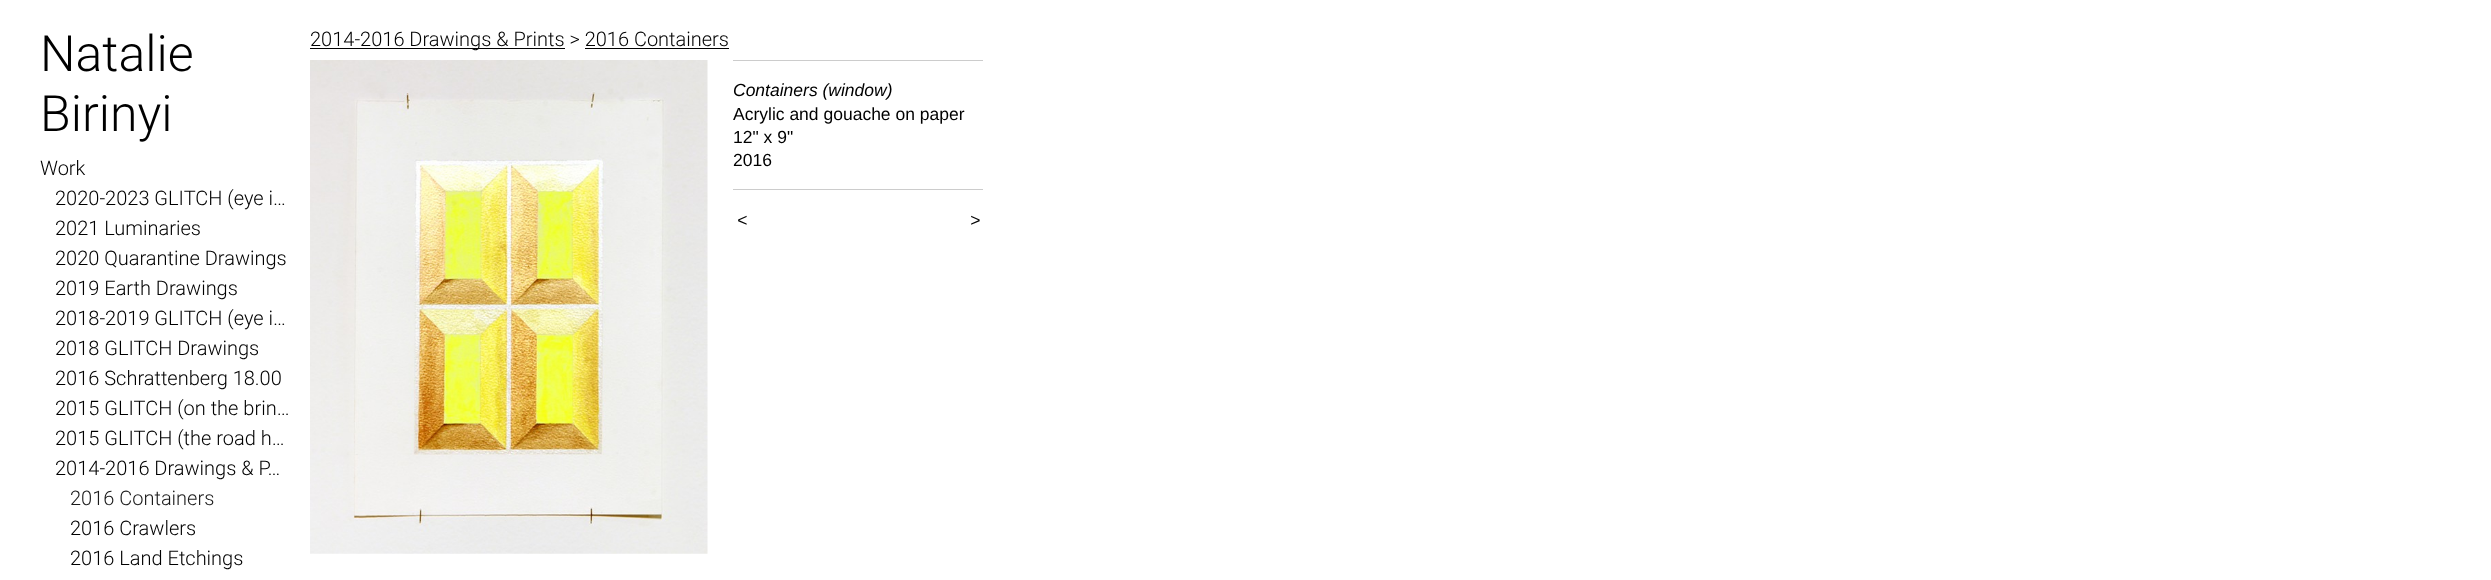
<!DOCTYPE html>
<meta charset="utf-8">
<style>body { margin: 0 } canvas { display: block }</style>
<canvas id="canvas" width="2491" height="580"></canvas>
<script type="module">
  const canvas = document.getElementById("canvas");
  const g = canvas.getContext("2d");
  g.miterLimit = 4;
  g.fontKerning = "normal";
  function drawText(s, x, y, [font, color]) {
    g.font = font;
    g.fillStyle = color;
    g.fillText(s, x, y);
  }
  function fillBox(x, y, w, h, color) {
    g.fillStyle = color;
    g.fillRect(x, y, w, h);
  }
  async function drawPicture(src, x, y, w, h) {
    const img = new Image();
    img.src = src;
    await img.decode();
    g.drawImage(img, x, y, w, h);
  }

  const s1 = ["300 50px Roboto", "#000000"];
  const s2 = ["300 20px Roboto", "#000000"];
  const s3 = ["300 20px Roboto", "#1A1A1A"];
  const s4 = ["italic 17.5px Liberation Sans", "#000000"];
  const s5 = ["17.5px Liberation Sans", "#000000"];

  fillBox(0, 0, 2491, 580, "#FFFFFF");
  drawText("Natalie", 40, 71, s1);
  drawText("Birinyi", 40, 131, s1);
  drawText("Work", 40, 175, s2);
  drawText("2020-2023 GLITCH (eye i…", 55, 205, s2);
  drawText("2021 Luminaries", 55, 235, s2);
  drawText("2020 Quarantine Drawings", 55, 265, s2);
  drawText("2019 Earth Drawings", 55, 295, s2);
  drawText("2018-2019 GLITCH (eye i…", 55, 325, s2);
  drawText("2018 GLITCH Drawings", 55, 355, s2);
  drawText("2016 Schrattenberg 18.00", 55, 385, s2);
  drawText("2015 GLITCH (on the brin…", 55, 415, s2);
  drawText("2015 GLITCH (the road h…", 55, 445, s2);
  drawText("2014-2016 Drawings & P…", 55, 475, s2);
  drawText("2016 Containers", 70, 505, s3);
  drawText("2016 Crawlers", 70, 535, s2);
  drawText("2016 Land Etchings", 70, 565, s2);
  fillBox(310, 48, 255, 1, "#000000");
  drawText("2014-2016 Drawings & Prints > 2016 Containers", 310, 46, s2);
  fillBox(585, 48, 144, 1, "#000000");
  await drawPicture("pic1.png", 310, 60, 398, 494);
  fillBox(733, 60, 250, 1, "#CCCCCC");
  drawText("Containers (window)", 733, 96, s4);
  drawText("Acrylic and gouache on paper", 733, 120, s5);
  drawText("12\" x 9\"", 733, 143, s5);
  drawText("2016", 733, 166, s5);
  fillBox(733, 189, 250, 1, "#CCCCCC");
  g.letterSpacing = "1px";
  drawText("<", 737, 226, s4);
  drawText(">", 970, 226, s4);
</script>
